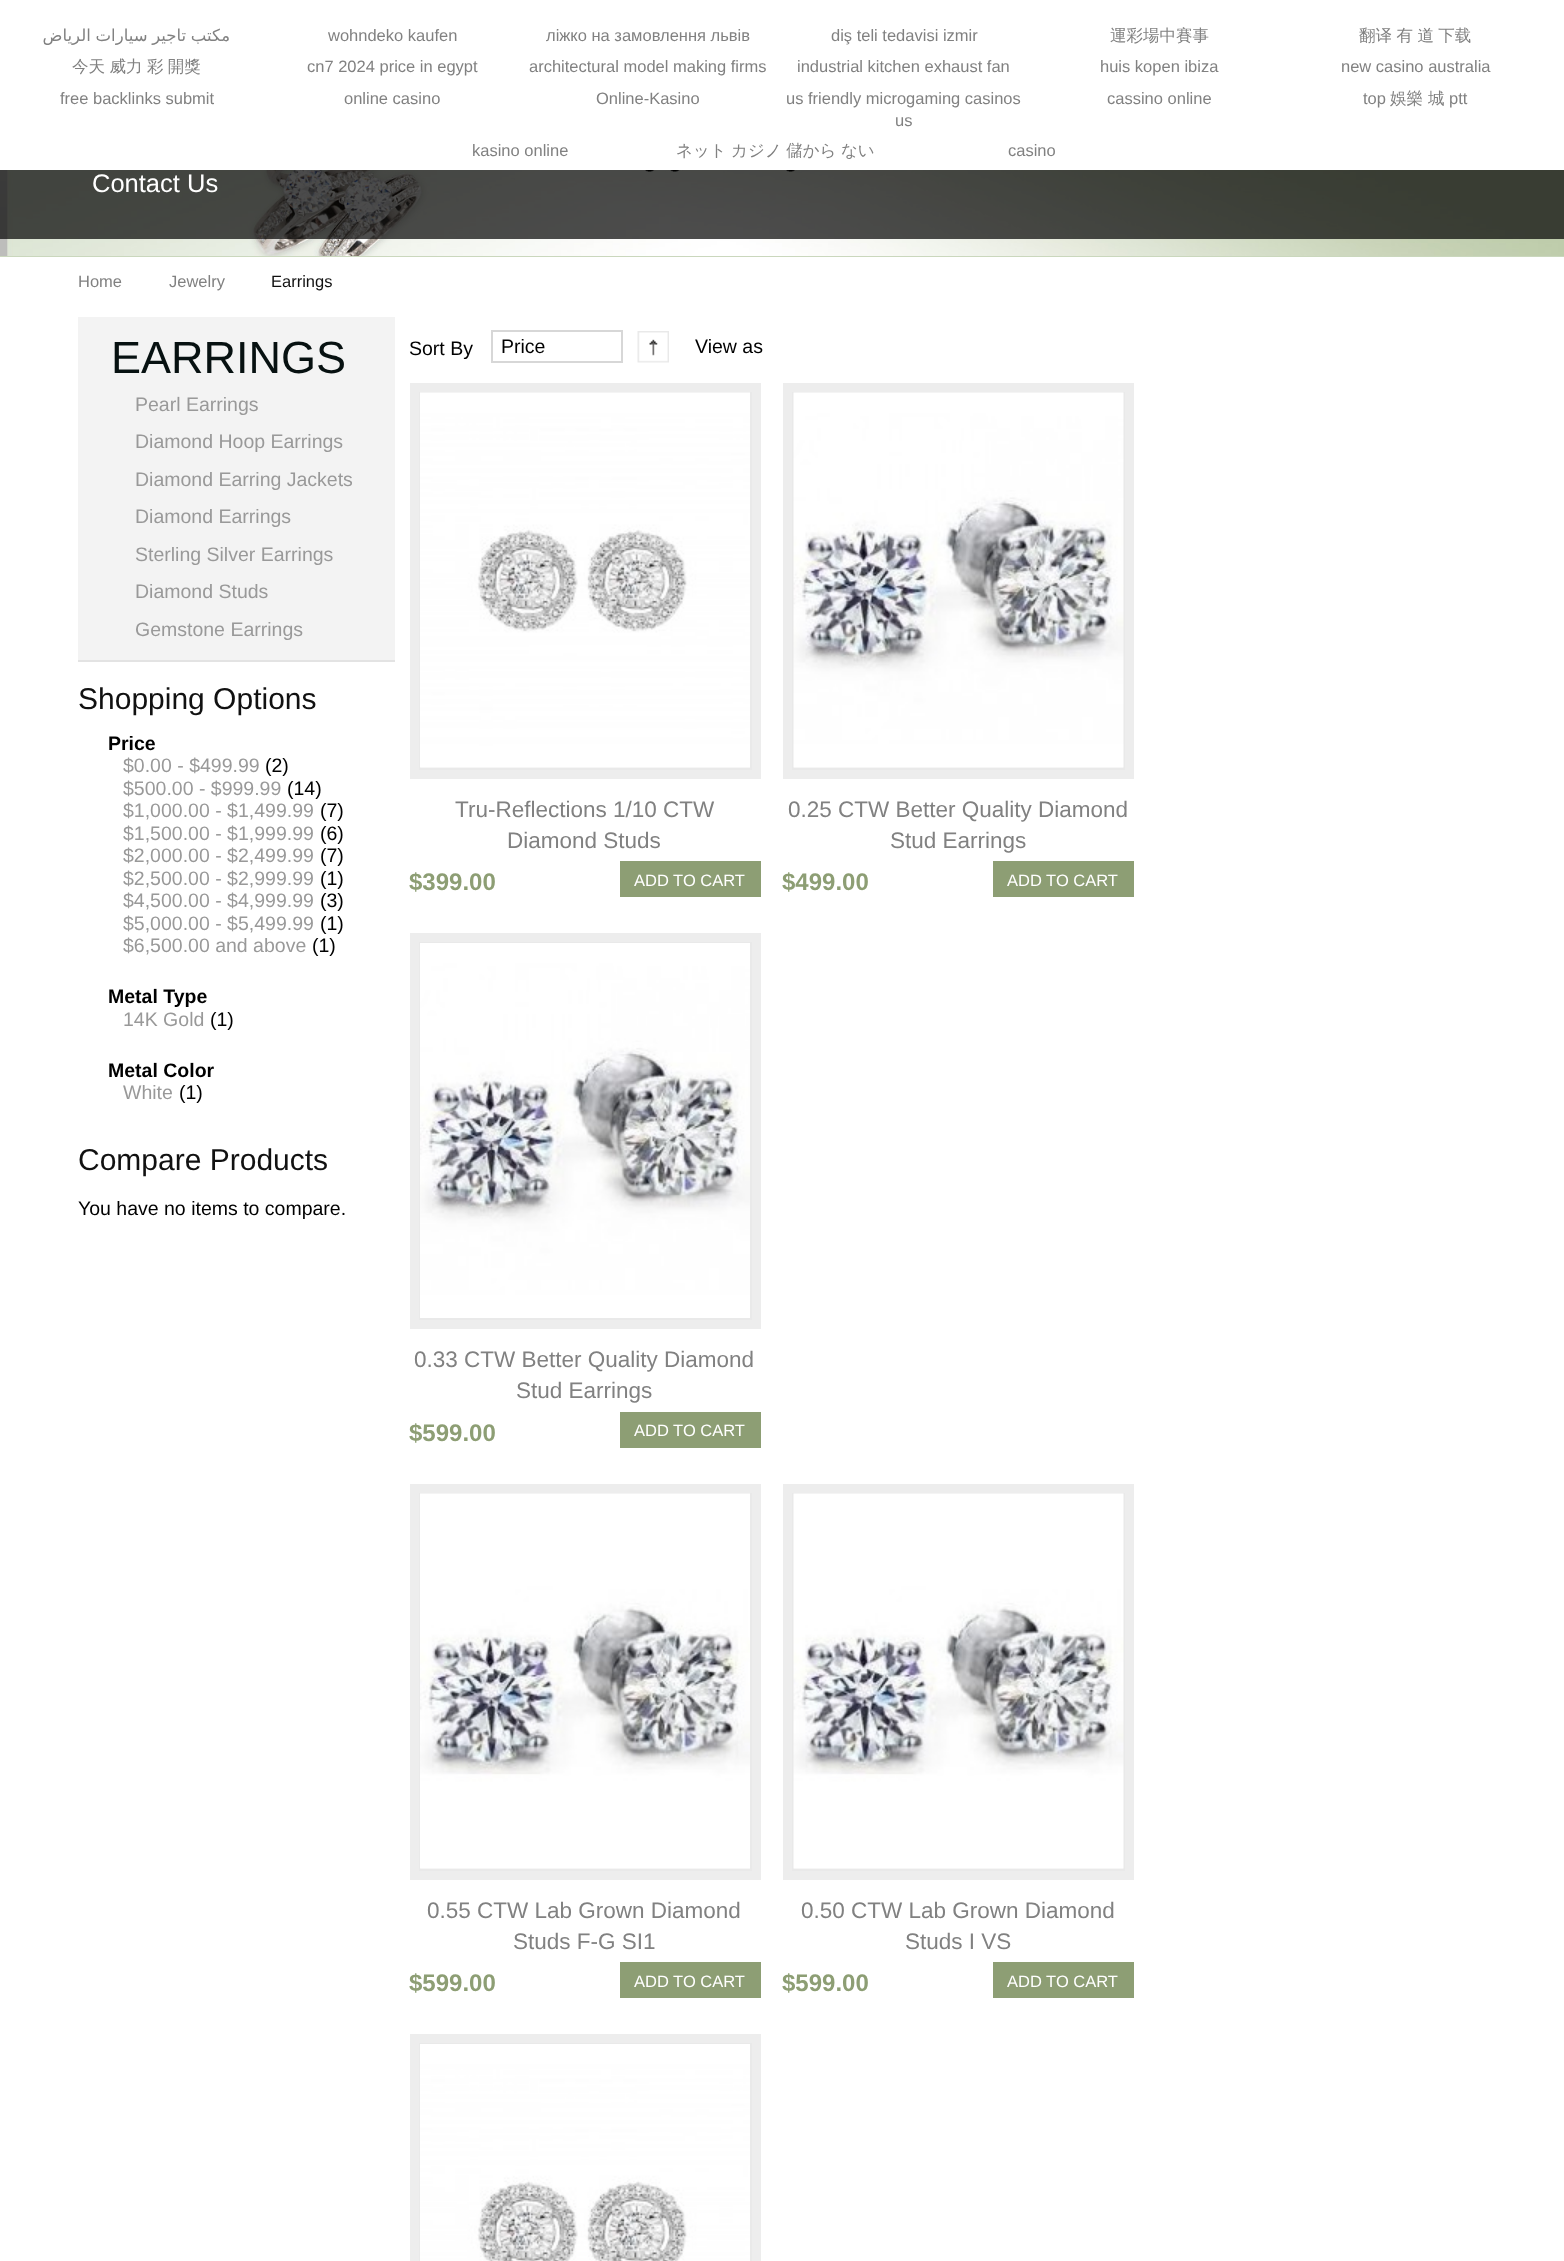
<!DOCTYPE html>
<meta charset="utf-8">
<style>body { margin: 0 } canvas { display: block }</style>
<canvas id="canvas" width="1564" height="2261"></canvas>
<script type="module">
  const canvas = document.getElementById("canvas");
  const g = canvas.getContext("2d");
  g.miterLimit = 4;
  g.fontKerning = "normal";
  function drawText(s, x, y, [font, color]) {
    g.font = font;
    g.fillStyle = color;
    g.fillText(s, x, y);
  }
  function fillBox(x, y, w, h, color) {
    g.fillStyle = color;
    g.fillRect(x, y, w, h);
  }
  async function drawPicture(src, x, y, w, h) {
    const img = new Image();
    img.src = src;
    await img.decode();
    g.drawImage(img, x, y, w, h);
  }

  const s1 = ["16.5px DejaVu Sans", "#818181"];
  const s2 = ["16.5px Liberation Sans", "#818181"];
  const s3 = ["500 16.5px WenQuanYi Zen Hei", "#818181"];
  const s4 = ["25.5px Liberation Sans", "#FFFFFF"];
  const s5 = ["16.5px Liberation Sans", "#111111"];
  const s6 = ["45px Liberation Sans", "#071111"];
  const s7 = ["19.5px Liberation Sans", "#999999"];
  const s8 = ["30px Liberation Sans", "#111111"];
  const s9 = ["bold 19.5px Liberation Sans", "#000000"];
  const s10 = ["19.5px Liberation Sans", "#000000"];
  const s11 = ["22.5px Liberation Sans", "#818181"];
  const s12 = ["bold 24px Liberation Sans", "#8D9E74"];
  const s13 = ["16.5px Liberation Sans", "#FFFFFF"];

  fillBox(0, 0, 1564, 2261, "#FFFFFF");
  g.wordSpacing = "-0.5px";
  g.direction = "rtl";
  drawText("مكتب تاجير سيارات الرياض", 230, 41, s1);
  g.wordSpacing = "0px";
  g.direction = "ltr";
  drawText("wohndeko kaufen", 328, 41, s2);
  drawText("ліжко на замовлення львів", 546, 41, s2);
  drawText("diş teli tedavisi izmir", 831, 41, s2);
  drawText("運彩場中賽事", 1110, 41, s3);
  g.wordSpacing = "-0.5px";
  drawText("翻译 有 道 下载", 1359, 41, s3);
  drawText("今天 威力 彩 開獎", 72, 72, s3);
  g.wordSpacing = "0px";
  drawText("cn7 2024 price in egypt", 307, 72, s2);
  drawText("architectural model making firms", 529, 72, s2);
  drawText("industrial kitchen exhaust fan", 797, 72, s2);
  drawText("huis kopen ibiza", 1100, 72, s2);
  drawText("new casino australia", 1341, 72, s2);
  drawText("free backlinks submit", 60, 104, s2);
  drawText("online casino", 344, 104, s2);
  drawText("Online-Kasino", 596, 104, s2);
  drawText("us friendly microgaming casinos", 786, 104, s2);
  drawText("us", 895, 126, s2);
  drawText("cassino online", 1107, 104, s2);
  drawText("top", 1363, 104, s2);
  drawText("娛樂 城", 1390, 104, s3);
  drawText("ptt", 1449, 104, s2);
  drawText("kasino online", 472, 156, s2);
  g.wordSpacing = "-0.5px";
  drawText("ネット カジノ 儲から ない", 676, 156, s3);
  g.wordSpacing = "0px";
  drawText("casino", 1008, 156, s2);
  fillBox(0, 256, 1564, 1, "#CAD7BD");
  await drawPicture("pic1.png", 0, 170, 1564, 86);
  drawText("Contact Us", 92, 192, s4);
  drawText("Home", 78, 287, s2);
  drawText("Jewelry", 169, 287, s2);
  drawText("Earrings", 271, 287, s5);
  fillBox(78, 317, 317, 343, "#F3F3F3");
  fillBox(78, 660, 317, 2, "#E3E3E3");
  drawText("EARRINGS", 111, 373, s6);
  drawText("Pearl Earrings", 135, 411, s7);
  drawText("Diamond Hoop Earrings", 135, 448, s7);
  drawText("Diamond Earring Jackets", 135, 486, s7);
  drawText("Diamond Earrings", 135, 523, s7);
  drawText("Sterling Silver Earrings", 135, 561, s7);
  drawText("Diamond Studs", 135, 598, s7);
  drawText("Gemstone Earrings", 135, 636, s7);
  drawText("Shopping Options", 78, 709, s8);
  drawText("Price", 108, 750, s9);
  drawText("$0.00 - $499.99", 123, 772, s7);
  drawText("(2)", 265, 772, s10);
  drawText("$500.00 - $999.99", 123, 795, s7);
  drawText("(14)", 287, 795, s10);
  drawText("$1,000.00 - $1,499.99", 123, 817, s7);
  drawText("(7)", 320, 817, s10);
  drawText("$1,500.00 - $1,999.99", 123, 840, s7);
  drawText("(6)", 320, 840, s10);
  drawText("$2,000.00 - $2,499.99", 123, 862, s7);
  drawText("(7)", 320, 862, s10);
  drawText("$2,500.00 - $2,999.99", 123, 885, s7);
  drawText("(1)", 320, 885, s10);
  drawText("$4,500.00 - $4,999.99", 123, 907, s7);
  drawText("(3)", 320, 907, s10);
  drawText("$5,000.00 - $5,499.99", 123, 930, s7);
  drawText("(1)", 320, 930, s10);
  drawText("$6,500.00 and above", 123, 952, s7);
  drawText("(1)", 312, 952, s10);
  drawText("Metal Type", 108, 1003, s9);
  drawText("14K Gold", 123, 1026, s7);
  drawText("(1)", 210, 1026, s10);
  drawText("Metal Color", 108, 1077, s9);
  drawText("White", 123, 1099, s7);
  drawText("(1)", 179, 1099, s10);
  drawText("Compare Products", 78, 1170, s8);
  drawText("You have no items to compare.", 78, 1215, s10);
  drawText("Sort By", 409, 355, s10);
  g.strokeStyle = "#D7D7D7";
  g.lineWidth = 2;
  g.strokeRect(492, 331, 130, 31);
  drawText("Price", 501, 353, s10);
  await drawPicture("pic2.png", 637, 331, 32, 32);
  drawText("View as", 695, 353, s10);
  fillBox(410, 383, 351, 396, "#EDEDED");
  g.strokeStyle = "#E9E9E9";
  g.strokeRect(420, 393, 331, 376);
  await drawPicture("pic3.png", 420, 392, 330, 376);
  drawText("Tru-Reflections 1/10 CTW", 455, 817, s11);
  drawText("Diamond Studs", 507, 848, s11);
  drawText("$399.00", 409, 890, s12);
  fillBox(620, 861, 141, 36, "#8D9E74");
  drawText("ADD TO CART", 634, 886, s13);
  fillBox(783, 383, 351, 396, "#EDEDED");
  g.strokeRect(793, 393, 331, 376);
  await drawPicture("pic4.png", 793, 392, 331, 376);
  drawText("0.25 CTW Better Quality Diamond", 788, 817, s11);
  drawText("Stud Earrings", 890, 848, s11);
  drawText("$499.00", 782, 890, s12);
  fillBox(993, 861, 141, 36, "#8D9E74");
  drawText("ADD TO CART", 1007, 886, s13);
  fillBox(410, 933, 351, 396, "#EDEDED");
  g.strokeRect(420, 943, 331, 376);
  await drawPicture("pic5.png", 420, 943, 330, 375);
  drawText("0.33 CTW Better Quality Diamond", 414, 1367, s11);
  drawText("Stud Earrings", 516, 1398, s11);
  drawText("$599.00", 409, 1441, s12);
  fillBox(620, 1412, 141, 36, "#8D9E74");
  drawText("ADD TO CART", 634, 1436, s13);
  fillBox(410, 1484, 351, 396, "#EDEDED");
  g.strokeRect(420, 1494, 331, 376);
  await drawPicture("pic6.png", 420, 1493, 330, 376);
  drawText("0.55 CTW Lab Grown Diamond", 427, 1918, s11);
  drawText("Studs F-G SI1", 513, 1949, s11);
  drawText("$599.00", 409, 1991, s12);
  fillBox(620, 1962, 141, 36, "#8D9E74");
  drawText("ADD TO CART", 634, 1987, s13);
  fillBox(783, 1484, 351, 396, "#EDEDED");
  g.strokeRect(793, 1494, 331, 376);
  await drawPicture("pic7.png", 793, 1493, 331, 376);
  drawText("0.50 CTW Lab Grown Diamond", 801, 1918, s11);
  drawText("Studs I VS", 905, 1949, s11);
  drawText("$599.00", 782, 1991, s12);
  fillBox(993, 1962, 141, 36, "#8D9E74");
  drawText("ADD TO CART", 1007, 1987, s13);
  fillBox(410, 2034, 351, 227, "#EDEDED");
  g.strokeRect(420, 2044, 331, 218);
  await drawPicture("pic8.png", 420, 2044, 330, 217);
</script>
